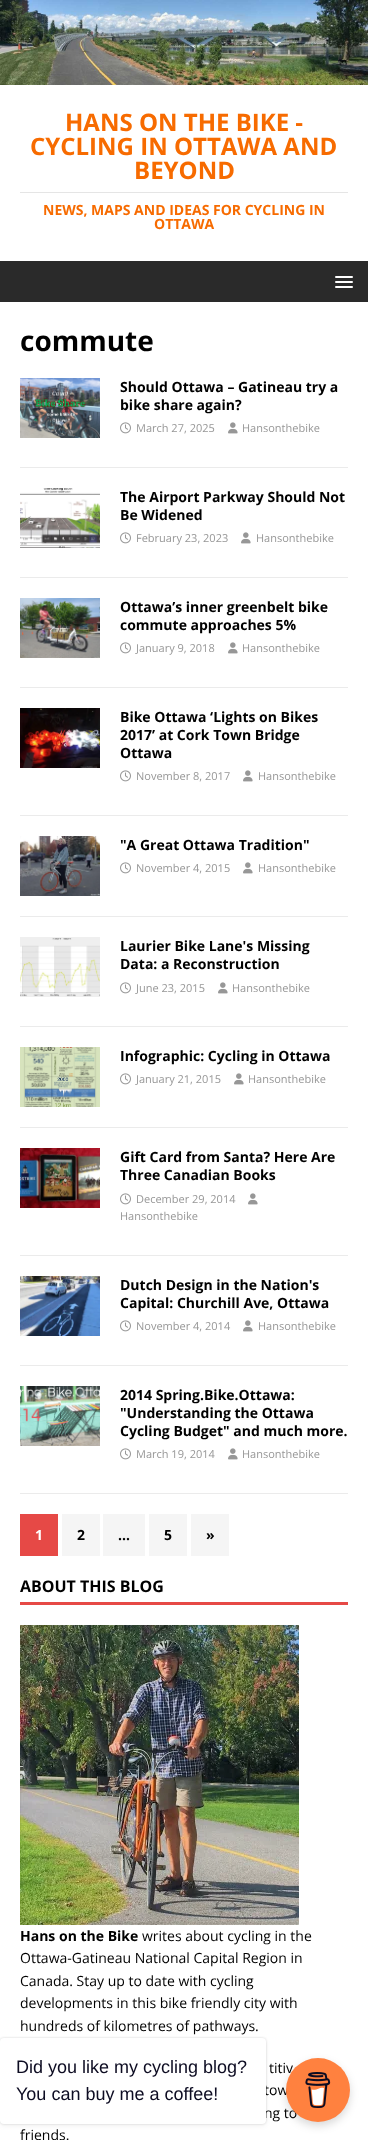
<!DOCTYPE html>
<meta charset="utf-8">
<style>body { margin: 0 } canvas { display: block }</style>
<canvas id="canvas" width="368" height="2140"></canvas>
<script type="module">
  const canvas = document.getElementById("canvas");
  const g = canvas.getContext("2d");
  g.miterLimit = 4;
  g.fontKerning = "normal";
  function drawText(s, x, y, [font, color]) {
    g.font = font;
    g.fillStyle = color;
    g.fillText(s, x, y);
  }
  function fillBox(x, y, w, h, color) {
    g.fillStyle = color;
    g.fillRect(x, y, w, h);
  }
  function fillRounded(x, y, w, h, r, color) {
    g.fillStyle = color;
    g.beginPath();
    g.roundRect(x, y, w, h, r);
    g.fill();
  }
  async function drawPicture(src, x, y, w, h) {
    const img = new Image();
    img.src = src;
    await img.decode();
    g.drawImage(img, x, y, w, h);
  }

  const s1 = ["bold 24px Open Sans", "#F76B00"];
  const s2 = ["bold 14px Open Sans", "#F76B00"];
  const s3 = ["bold 28px Open Sans", "#000000"];
  const s4 = ["bold 14px Open Sans", "#000000"];
  const s5 = ["11px Open Sans", "#979797"];
  const s6 = ["bold 14px Open Sans", "#FFFFFF"];
  const s7 = ["bold 16px Open Sans", "#000000"];
  const s8 = ["14px Open Sans", "#000000"];
  const s9 = ["18px Liberation Sans", "#0D0C22"];

  fillBox(0, 0, 368, 2140, "#FFFFFF");
  await drawPicture("pic1.png", 0, 0, 368, 85);
  drawText("HANS ON THE BIKE -", 65, 131, s1);
  drawText("CYCLING IN OTTAWA AND", 30, 155, s1);
  drawText("BEYOND", 134, 179, s1);
  fillBox(20, 192, 328, 1, "#E5E5E5");
  drawText("NEWS, MAPS AND IDEAS FOR CYCLING IN", 43, 215, s2);
  drawText("OTTAWA", 154, 229, s2);
  fillBox(0, 261, 368, 41, "#2A2A2A");
  fillRounded(335, 276, 18, 2, 1, "#FFFFFF");
  fillRounded(335, 281, 18, 2, 1, "#FFFFFF");
  fillRounded(335, 286, 18, 2, 1, "#FFFFFF");
  drawText("commute", 20, 351, s3);
  fillBox(20, 467, 328, 1, "#EBEBEB");
  await drawPicture("pic2.png", 20, 378, 80, 60);
  drawText("Should Ottawa – Gatineau try a", 120, 392, s4);
  drawText("bike share again?", 120, 410, s4);
  await drawPicture("pic3.png", 120, 422, 11, 12);
  drawText("March 27, 2025", 136, 432, s5);
  await drawPicture("pic4.png", 228, 422, 10, 12);
  drawText("Hansonthebike", 242, 432, s5);
  fillBox(20, 577, 328, 1, "#EBEBEB");
  await drawPicture("pic5.png", 20, 488, 80, 60);
  drawText("The Airport Parkway Should Not", 120, 502, s4);
  drawText("Be Widened", 120, 520, s4);
  await drawPicture("pic3.png", 120, 532, 11, 12);
  drawText("February 23, 2023", 136, 542, s5);
  await drawPicture("pic4.png", 241, 532, 10, 12);
  drawText("Hansonthebike", 256, 542, s5);
  fillBox(20, 687, 328, 1, "#EBEBEB");
  await drawPicture("pic6.png", 20, 598, 80, 60);
  drawText("Ottawa’s inner greenbelt bike", 120, 612, s4);
  drawText("commute approaches 5%", 120, 630, s4);
  await drawPicture("pic3.png", 120, 642, 11, 12);
  drawText("January 9, 2018", 136, 652, s5);
  await drawPicture("pic4.png", 228, 642, 10, 12);
  drawText("Hansonthebike", 242, 652, s5);
  fillBox(20, 815, 328, 1, "#EBEBEB");
  await drawPicture("pic7.png", 20, 708, 80, 60);
  drawText("Bike Ottawa ‘Lights on Bikes", 120, 722, s4);
  drawText("2017’ at Cork Town Bridge", 120, 740, s4);
  drawText("Ottawa", 120, 758, s4);
  await drawPicture("pic3.png", 120, 770, 11, 12);
  drawText("November 8, 2017", 136, 780, s5);
  await drawPicture("pic4.png", 243, 770, 10, 12);
  drawText("Hansonthebike", 258, 780, s5);
  fillBox(20, 916, 328, 1, "#EBEBEB");
  await drawPicture("pic8.png", 20, 836, 80, 60);
  drawText("\"A Great Ottawa Tradition\"", 120, 850, s4);
  await drawPicture("pic3.png", 120, 862, 11, 12);
  drawText("November 4, 2015", 136, 872, s5);
  await drawPicture("pic4.png", 243, 862, 10, 12);
  drawText("Hansonthebike", 258, 872, s5);
  fillBox(20, 1026, 328, 1, "#EBEBEB");
  await drawPicture("pic9.png", 20, 937, 80, 60);
  drawText("Laurier Bike Lane's Missing", 120, 951, s4);
  drawText("Data: a Reconstruction", 120, 969, s4);
  await drawPicture("pic3.png", 120, 982, 11, 12);
  drawText("June 23, 2015", 136, 992, s5);
  await drawPicture("pic4.png", 218, 982, 10, 12);
  drawText("Hansonthebike", 232, 992, s5);
  fillBox(20, 1127, 328, 1, "#EBEBEB");
  await drawPicture("pic10.png", 20, 1047, 80, 60);
  drawText("Infographic: Cycling in Ottawa", 120, 1061, s4);
  await drawPicture("pic3.png", 120, 1073, 11, 12);
  drawText("January 21, 2015", 136, 1083, s5);
  await drawPicture("pic4.png", 234, 1073, 10, 12);
  drawText("Hansonthebike", 248, 1083, s5);
  fillBox(20, 1255, 328, 1, "#EBEBEB");
  await drawPicture("pic11.png", 20, 1148, 80, 60);
  drawText("Gift Card from Santa? Here Are", 120, 1162, s4);
  drawText("Three Canadian Books", 120, 1180, s4);
  await drawPicture("pic3.png", 120, 1193, 11, 12);
  drawText("December 29, 2014", 136, 1203, s5);
  await drawPicture("pic4.png", 248, 1193, 10, 12);
  drawText("Hansonthebike", 120, 1220, s5);
  fillBox(20, 1365, 328, 1, "#EBEBEB");
  await drawPicture("pic12.png", 20, 1276, 80, 60);
  drawText("Dutch Design in the Nation's", 120, 1290, s4);
  drawText("Capital: Churchill Ave, Ottawa", 120, 1308, s4);
  await drawPicture("pic3.png", 120, 1320, 11, 12);
  drawText("November 4, 2014", 136, 1330, s5);
  await drawPicture("pic4.png", 243, 1320, 10, 12);
  drawText("Hansonthebike", 258, 1330, s5);
  fillBox(20, 1493, 328, 1, "#EBEBEB");
  await drawPicture("pic13.png", 20, 1386, 80, 60);
  drawText("2014 Spring.Bike.Ottawa:", 120, 1400, s4);
  drawText("\"Understanding the Ottawa", 120, 1418, s4);
  drawText("Cycling Budget\" and much more.", 120, 1436, s4);
  await drawPicture("pic3.png", 120, 1448, 11, 12);
  drawText("March 19, 2014", 136, 1458, s5);
  await drawPicture("pic4.png", 228, 1448, 10, 12);
  drawText("Hansonthebike", 242, 1458, s5);
  fillBox(20, 1514, 38, 42, "#E64946");
  drawText("1", 35, 1540, s6);
  fillBox(62, 1514, 38, 42, "#F5F5F5");
  drawText("2", 77, 1540, s4);
  fillBox(103, 1514, 42, 42, "#F5F5F5");
  drawText("…", 118, 1540, s4);
  fillBox(149, 1514, 38, 42, "#F5F5F5");
  drawText("5", 164, 1540, s4);
  fillBox(191, 1514, 38, 42, "#F5F5F5");
  drawText("»", 206, 1540, s4);
  fillBox(20, 1602, 328, 3, "#E64946");
  drawText("ABOUT THIS BLOG", 20, 1592, s7);
  await drawPicture("pic14.png", 20, 1625, 279, 300);
  drawText("Hans on the Bike", 20, 1941, s4);
  drawText("writes about cycling in the", 142, 1941, s8);
  drawText("Ottawa-Gatineau National Capital Region in", 20, 1963, s8);
  drawText("Canada. Stay up to date with cycling", 20, 1986, s8);
  drawText("developments in this bike friendly city with", 20, 2008, s8);
  drawText("hundreds of kilometres of pathways.", 20, 2031, s8);
  drawText("titiv", 269, 2073, s8);
  drawText("tow", 264, 2095, s8);
  drawText("ng to", 264, 2118, s8);
  drawText("friends.", 20, 2140, s8);
  g.fillStyle = "rgba(0, 0, 0, 0.15)";
  g.filter = "blur(1px)";
  g.beginPath();
  g.roundRect(0, 2038, 266, 86, 4);
  g.fill();
  g.filter = "none";
  g.fillStyle = "rgba(0, 0, 0, 0.05)";
  g.filter = "blur(2.5px)";
  g.beginPath();
  g.roundRect(0, 2040, 266, 86, 4);
  g.fill();
  g.filter = "none";
  fillRounded(0, 2038, 266, 86, 4, "#FFFFFF");
  drawText("Did you like my cycling blog?", 16, 2073, s9);
  drawText("You can buy me a coffee!", 16, 2100, s9);
  g.fillStyle = "rgba(0, 0, 0, 0.15)";
  g.filter = "blur(4px)";
  g.beginPath();
  g.roundRect(286, 2062, 64, 64, 32);
  g.fill();
  g.filter = "none";
  g.fillStyle = "#FF813F";
  g.beginPath();
  g.arc(318, 2090, 32, 0, Math.PI * 2);
  g.fill();
  await drawPicture("pic15.png", 305, 2072, 26, 36);
</script>
